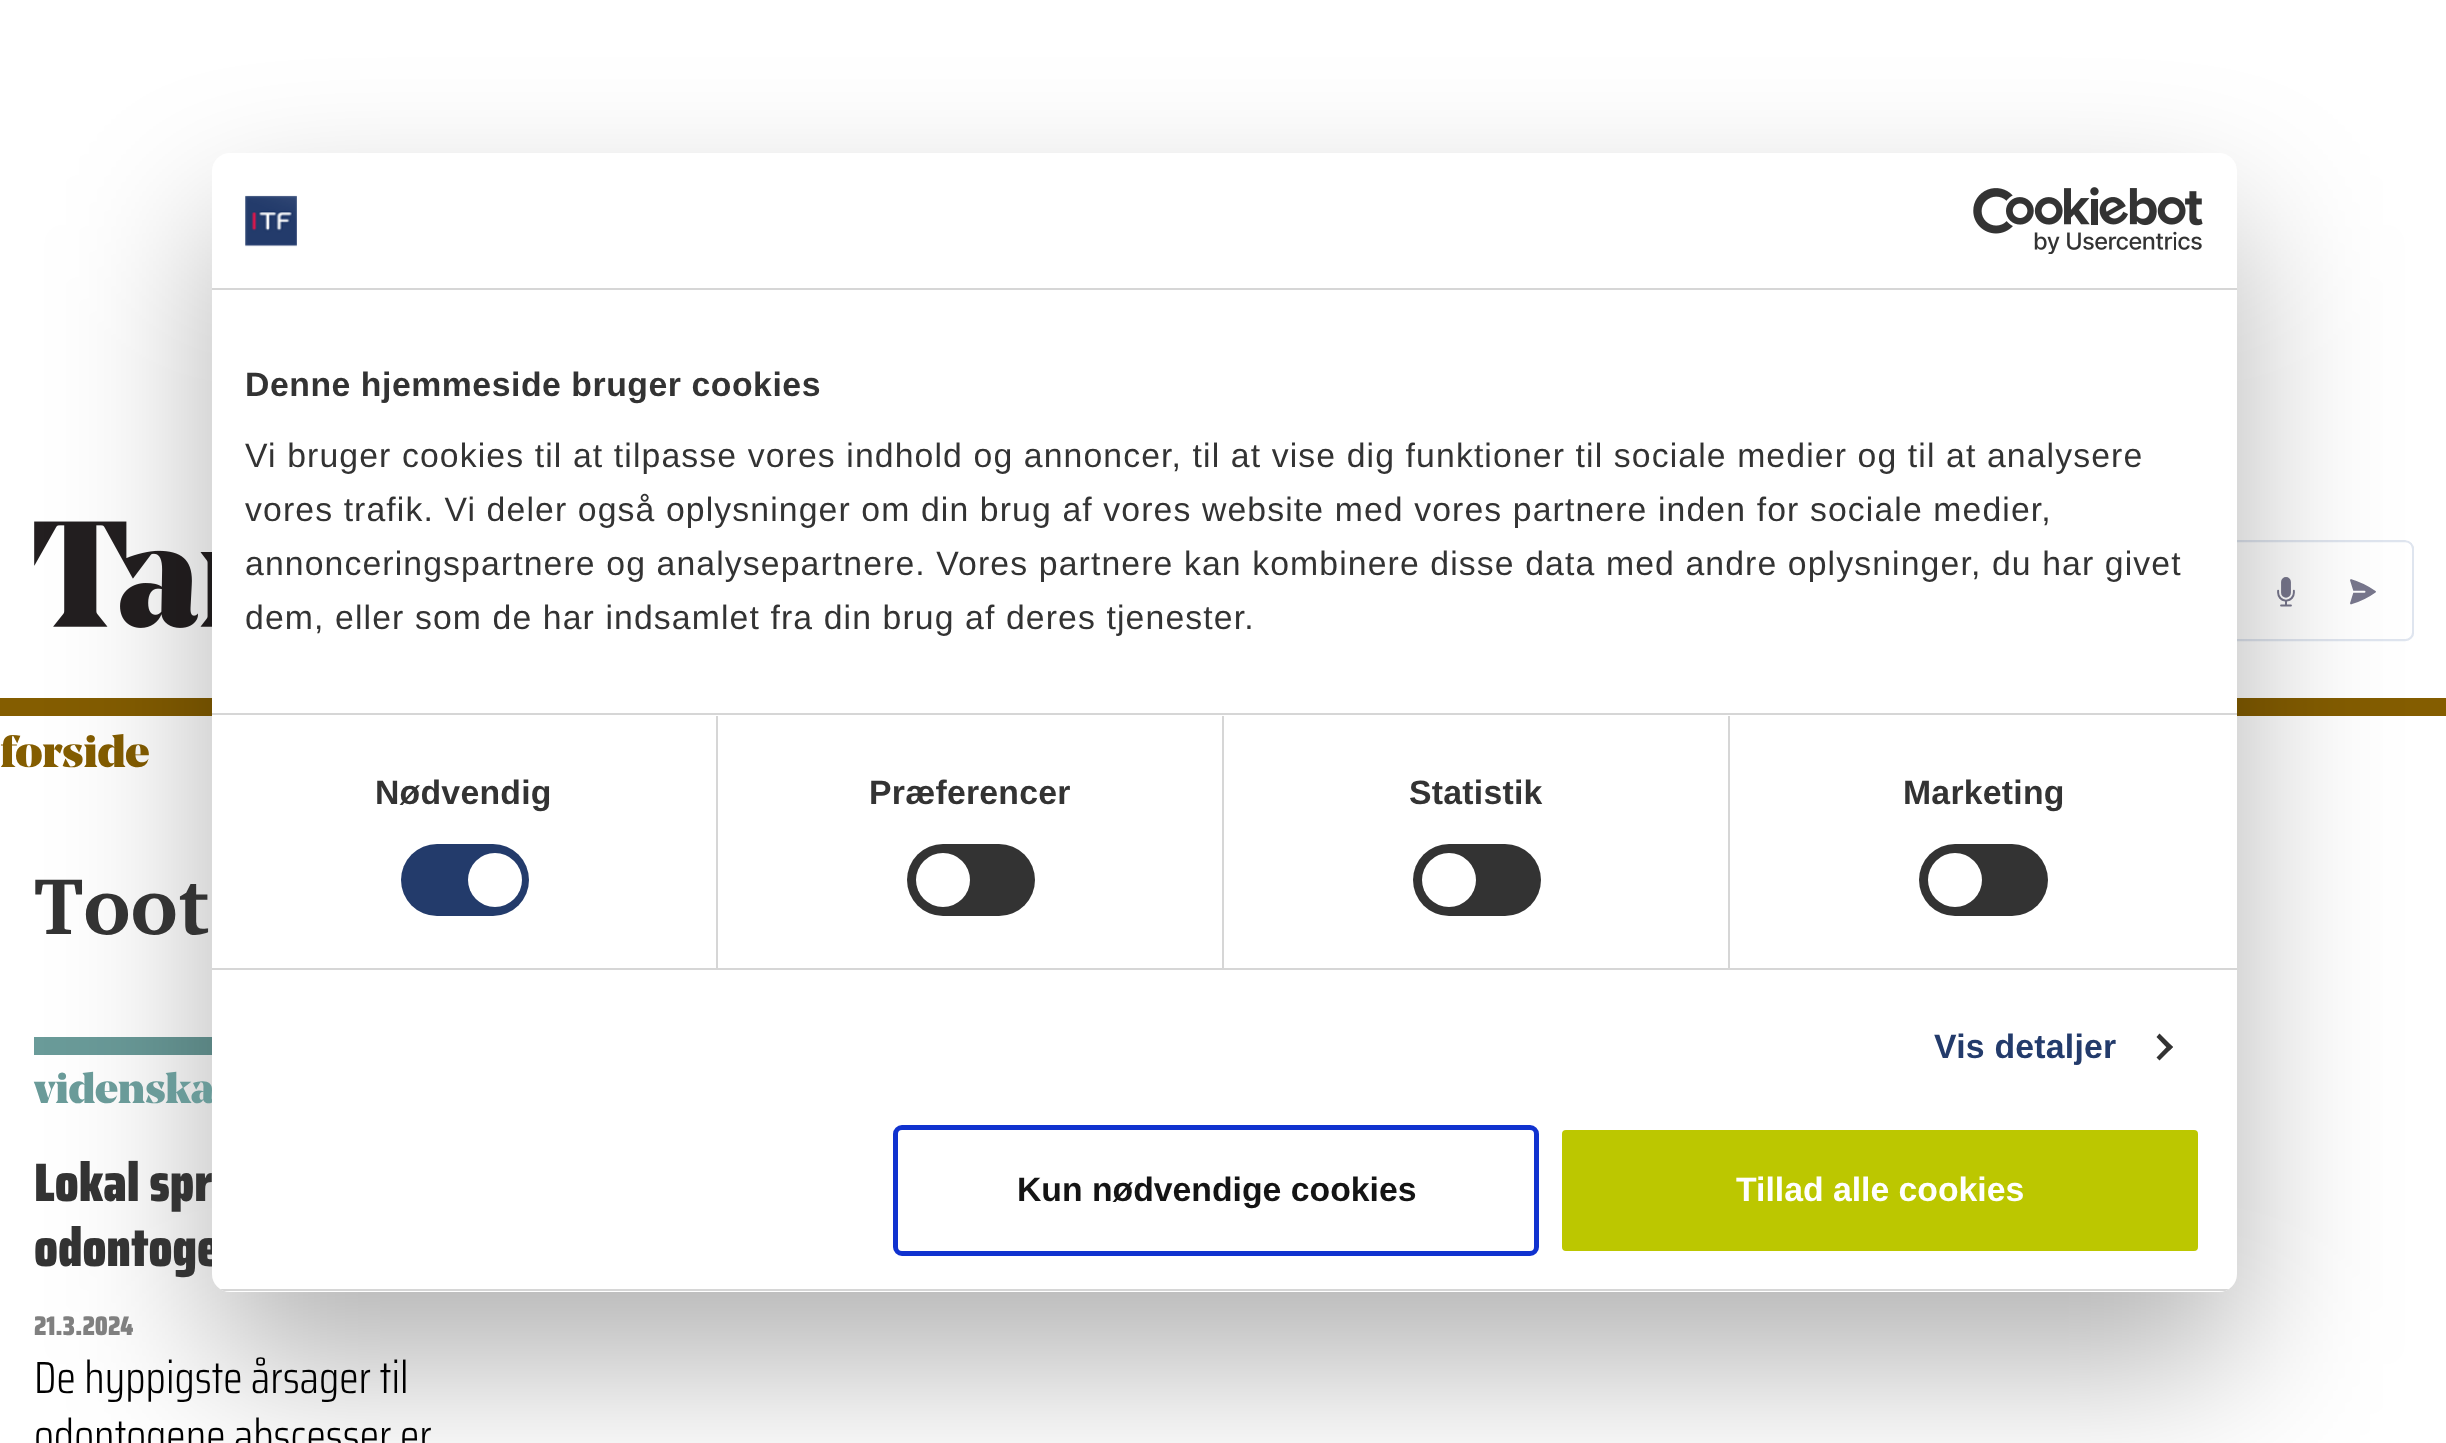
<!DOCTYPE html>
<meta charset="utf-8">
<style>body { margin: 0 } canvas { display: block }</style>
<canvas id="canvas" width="2446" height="1443"></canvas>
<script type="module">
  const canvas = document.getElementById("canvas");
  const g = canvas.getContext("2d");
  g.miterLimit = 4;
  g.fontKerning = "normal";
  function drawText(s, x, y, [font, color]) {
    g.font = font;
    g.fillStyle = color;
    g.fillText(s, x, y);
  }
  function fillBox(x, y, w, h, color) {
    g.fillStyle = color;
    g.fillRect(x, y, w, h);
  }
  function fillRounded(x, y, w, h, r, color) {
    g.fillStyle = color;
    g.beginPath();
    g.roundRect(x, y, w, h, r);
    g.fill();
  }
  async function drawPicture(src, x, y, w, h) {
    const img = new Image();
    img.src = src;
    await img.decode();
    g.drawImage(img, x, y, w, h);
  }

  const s1 = ["900 45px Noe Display", "#845D00"];
  const s2 = ["900 42.75px Noe Display", "#6A9B99"];
  const s3 = ["900 54px Saira Condensed", "#333333"];
  const s4 = ["bold 33.75px Liberation Sans", "#333333"];
  const s5 = ["33.75px Liberation Sans", "#333333"];
  const s6 = ["bold 33.75px Liberation Sans", "#233B6B"];
  const s7 = ["bold 33.75px Liberation Sans", "#141414"];
  const s8 = ["bold 33.75px Liberation Sans", "#FFFFFF"];
  const s9 = ["bold 81px Charis SIL", "#333333"];
  const s10 = ["900 27px Saira Condensed", "#808080"];
  const s11 = ["300 45px Saira Condensed", "#000000"];

  fillBox(0, 0, 2446, 1443, "#FFFFFF");
  await drawPicture("pic1.png", 34, 521, 178, 107);
  await drawPicture("pic2.png", 2237, 540, 177, 102);
  fillBox(0, 698, 2446, 18, "#845D00");
  drawText("forside", 0, 767, s1);
  fillBox(34, 1037, 178, 18, "#6A9B99");
  g.fillStyle = "rgba(0, 0, 0, 0.3)";
  g.filter = "blur(76.5px)";
  g.beginPath();
  g.roundRect(212, 225, 2025, 1139, 18);
  g.fill();
  g.filter = "none";
  drawText("videnska", 34, 1103, s2);
  drawText("odontoge", 34, 1266, s3);
  fillRounded(212, 153, 2025, 1139, 18, "#FFFFFF");
  fillBox(212, 288, 2025, 2, "#D6D6D6");
  await drawPicture("pic3.png", 245, 195, 52, 52);
  await drawPicture("pic4.png", 1973, 187, 230, 67);
  fillBox(212, 713, 2025, 2, "#D6D6D6");
  g.letterSpacing = "0.55px";
  drawText("Denne hjemmeside bruger cookies", 245, 396, s4);
  g.letterSpacing = "1.12px";
  drawText("Vi bruger cookies til at tilpasse vores indhold og annoncer, til at vise dig funktioner til sociale medier og til at analysere", 245, 467, s5);
  drawText("vores trafik. Vi deler også oplysninger om din brug af vores website med vores partnere inden for sociale medier,", 245, 521, s5);
  drawText("annonceringspartnere og analysepartnere. Vores partnere kan kombinere disse data med andre oplysninger, du har givet", 245, 575, s5);
  drawText("dem, eller som de har indsamlet fra din brug af deres tjenester.", 245, 629, s5);
  fillBox(212, 968, 2025, 2, "#D6D6D6");
  fillBox(716, 716, 2, 252, "#D6D6D6");
  g.letterSpacing = "0.25px";
  drawText("Nødvendig", 375, 804, s4);
  fillRounded(401, 844, 128, 72, 36, "#233B6B");
  g.fillStyle = "#FFFFFF";
  g.beginPath();
  g.arc(495, 880, 27, 0, Math.PI * 2);
  g.fill();
  fillBox(1222, 716, 2, 252, "#D6D6D6");
  drawText("Præferencer", 869, 804, s4);
  fillRounded(907, 844, 128, 72, 36, "#333333");
  g.fillStyle = "#FFFFFF";
  g.beginPath();
  g.arc(943, 880, 27, 0, Math.PI * 2);
  g.fill();
  fillBox(1728, 716, 2, 252, "#D6D6D6");
  drawText("Statistik", 1409, 804, s4);
  fillRounded(1413, 844, 128, 72, 36, "#333333");
  g.fillStyle = "#FFFFFF";
  g.beginPath();
  g.arc(1449, 880, 27, 0, Math.PI * 2);
  g.fill();
  drawText("Marketing", 1903, 804, s4);
  fillRounded(1919, 844, 129, 72, 36, "#333333");
  g.fillStyle = "#FFFFFF";
  g.beginPath();
  g.arc(1955, 880, 27, 0, Math.PI * 2);
  g.fill();
  drawText("Vis detaljer", 1934, 1058, s6);
  g.fillStyle = "#333333";
  g.beginPath();
  g.moveTo(2159.5, 1033.5);
  g.lineTo(2173, 1047);
  g.lineTo(2169.5, 1050.5);
  g.lineTo(2156.5, 1037);
  g.closePath();
  g.fill();
  g.beginPath();
  g.moveTo(2169.5, 1044);
  g.lineTo(2173, 1047);
  g.lineTo(2159.5, 1060.5);
  g.lineTo(2156.5, 1057.5);
  g.closePath();
  g.fill();
  g.save();
  g.beginPath();
  g.roundRect(212, 153, 2025, 1139, 18);
  g.clip();
  fillBox(212, 1289, 2025, 2, "#D6D6D6");
  g.restore();
  g.beginPath();
  g.roundRect(895.5, 1127.5, 641, 126, 6.5);
  g.strokeStyle = "#1032CF";
  g.lineWidth = 5;
  g.stroke();
  g.letterSpacing = "0px";
  drawText("Kun nødvendige cookies", 1017, 1201, s7);
  g.fillStyle = "#BCC700";
  g.beginPath();
  g.roundRect(1559.5, 1127.5, 641, 126, 6.5);
  g.fill();
  g.strokeStyle = "#FFFFFF";
  g.stroke();
  drawText("Tillad alle cookies", 1736, 1201, s8);
  drawText("Toot", 34, 934, s9);
  drawText("Lokal spr", 34, 1201, s3);
  drawText("21.3.2024", 34, 1335, s10);
  drawText("De hyppigste årsager til", 34, 1393, s11);
  drawText("odontogene abscesser er", 34, 1451, s11);
</script>
